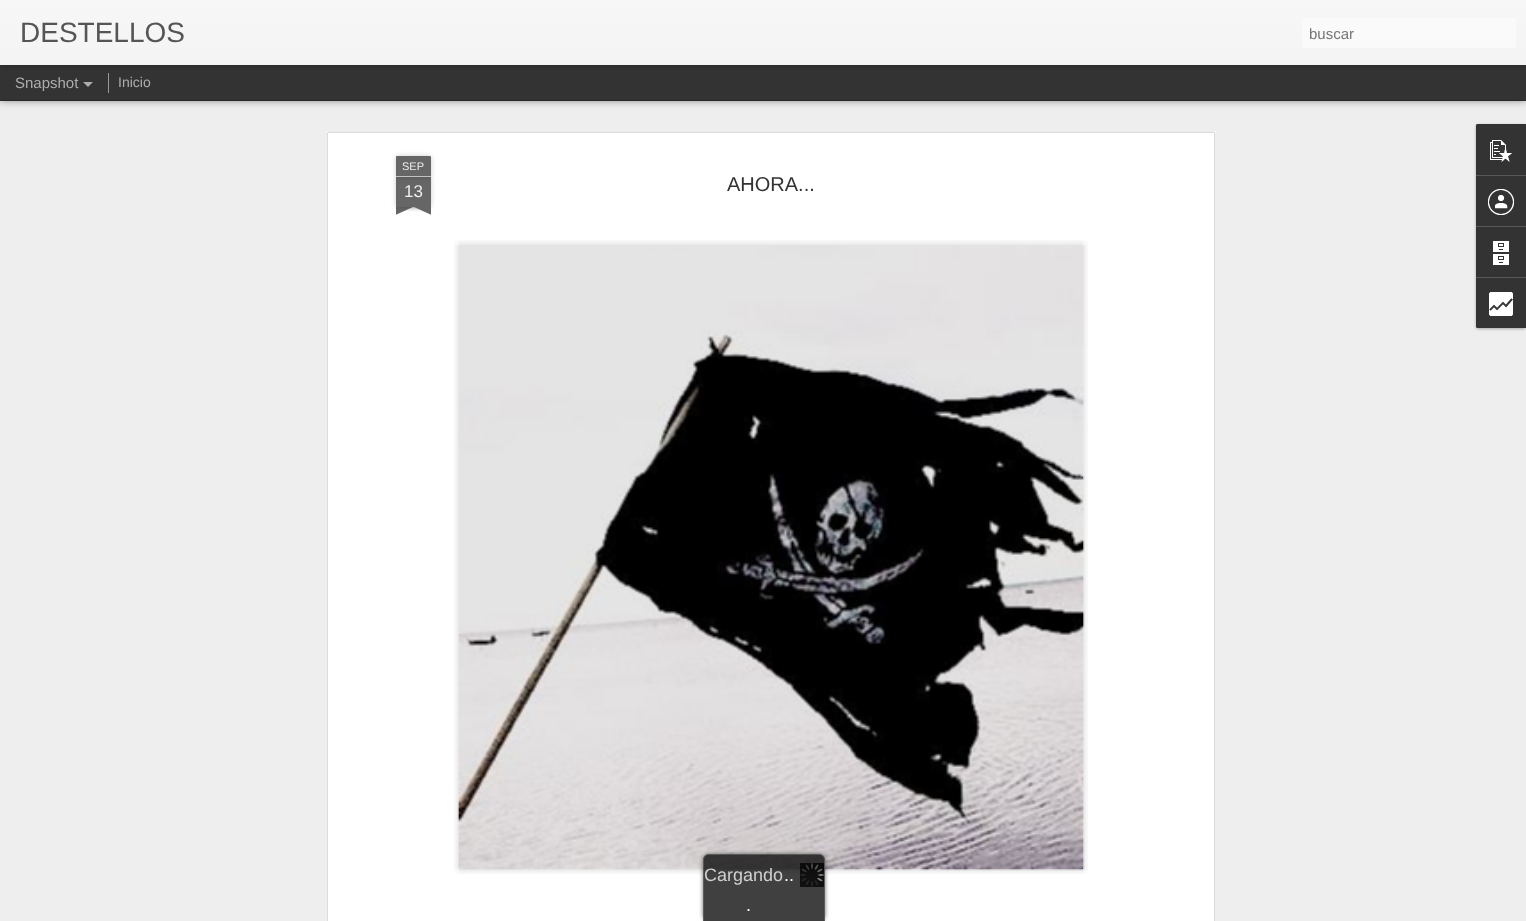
<!DOCTYPE html>
<meta charset="utf-8">
<style>body { margin: 0 } canvas { display: block }</style>
<canvas id="canvas" width="1526" height="921"></canvas>
<script type="module">
  const canvas = document.getElementById("canvas");
  const g = canvas.getContext("2d");
  g.miterLimit = 4;
  g.fontKerning = "normal";
  function drawText(s, x, y, [font, color]) {
    g.font = font;
    g.fillStyle = color;
    g.fillText(s, x, y);
  }
  function fillBox(x, y, w, h, color) {
    g.fillStyle = color;
    g.fillRect(x, y, w, h);
  }
  function fillRounded(x, y, w, h, r, color) {
    g.fillStyle = color;
    g.beginPath();
    g.roundRect(x, y, w, h, r);
    g.fill();
  }
  async function drawPicture(src, x, y, w, h) {
    const img = new Image();
    img.src = src;
    await img.decode();
    g.drawImage(img, x, y, w, h);
  }
  let gradient;

  const s1 = ["28px Liberation Sans", "#555555"];
  const s2 = ["15px Liberation Sans", "#757575"];
  const s3 = ["15px Liberation Sans", "#ADADAD"];
  const s4 = ["14px Liberation Sans", "#ADADAD"];
  const s5 = ["11px Liberation Sans", "#EEEEEE"];
  const s6 = ["17px Liberation Sans", "#EEEEEE"];
  const s7 = ["20px Liberation Sans", "#333333"];
  const s8 = ["18px Liberation Sans", "#CFCFCF"];
  const s9 = ["18px Liberation Sans", "#FFFFFF"];

  fillBox(0, 0, 1526, 921, "#333333");
  fillBox(0, 101, 1526, 820, "#EEEEEE");
  g.fillStyle = "rgba(0, 0, 0, 0.5)";
  g.filter = "blur(4px)";
  g.beginPath();
  g.rect(0, 65, 1526, 35);
  g.fill();
  g.filter = "none";
  fillBox(0, 65, 1526, 35, "#333333");
  fillBox(108, 73, 1, 20, "#999999");
  g.fillStyle = "rgba(0, 0, 0, 0.3)";
  g.filter = "blur(2.5px)";
  g.beginPath();
  g.rect(0, 0, 1526, 65);
  g.fill();
  g.filter = "none";
  gradient = g.createLinearGradient(0, 0, 0, 65);
  gradient.addColorStop(0, "#F7F7F7");
  gradient.addColorStop(1, "#F4F4F4");
  g.fillStyle = gradient;
  g.fillRect(0, 0, 1526, 65);
  drawText("DESTELLOS", 20, 42, s1);
  fillRounded(1302, 18, 214, 30, 3, "#FAFAFA");
  drawText("buscar", 1309, 39, s2);
  drawText("Snapshot", 15, 88, s3);
  g.beginPath();
  g.moveTo(83, 82);
  g.lineTo(93, 82);
  g.lineTo(88, 87);
  g.closePath();
  g.fill();
  drawText("Inicio", 118, 87, s4);
  fillBox(326, 131, 890, 790, "#FFFFFF");
  await drawPicture("pic1.png", 326, 131, 890, 790);
  g.fillStyle = "rgba(0, 0, 0, 0.2)";
  g.filter = "blur(2.5px)";
  g.beginPath();
  g.rect(396, 177, 35, 30);
  g.fill();
  g.filter = "none";
  fillBox(396, 177, 35, 30, "#666666");
  g.fillStyle = "rgba(0, 0, 0, 0.2)";
  g.filter = "blur(2.5px)";
  g.beginPath();
  g.roundRect(396, 156, 35, 21, 1);
  g.fill();
  g.filter = "none";
  g.fillStyle = "#666666";
  g.beginPath();
  g.roundRect(396, 156, 35, 21, [1, 1, 0, 0]);
  g.fill();
  fillBox(396, 176, 35, 1, "#C2C2C2");
  drawText("SEP", 402, 170, s5);
  drawText("13", 404, 197, s6);
  g.save();
  g.beginPath();
  g.rect(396, 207, 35, 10);
  g.clip();
  g.fillStyle = "rgba(0, 0, 0, 0.2)";
  g.filter = "blur(2.5px)";
  g.beginPath();
  g.rect(387, 197, 50, 10);
  g.fill();
  g.filter = "none";
  g.restore();
  g.save();
  g.beginPath();
  g.rect(396, 207, 35, 10);
  g.clip();
  g.fillStyle = "#666666";
  g.beginPath();
  g.moveTo(387, 208);
  g.lineTo(433, 187);
  g.lineTo(437, 196);
  g.lineTo(391, 217);
  g.closePath();
  g.fill();
  g.restore();
  g.save();
  g.beginPath();
  g.rect(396, 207, 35, 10);
  g.clip();
  g.fillStyle = "rgba(0, 0, 0, 0.2)";
  g.filter = "blur(2.5px)";
  g.beginPath();
  g.rect(390, 197, 50, 10);
  g.fill();
  g.filter = "none";
  g.restore();
  g.save();
  g.beginPath();
  g.rect(396, 207, 35, 10);
  g.clip();
  g.fillStyle = "#666666";
  g.beginPath();
  g.moveTo(394, 187);
  g.lineTo(440, 208);
  g.lineTo(436, 217);
  g.lineTo(390, 196);
  g.closePath();
  g.fill();
  g.restore();
  drawText("AHORA...", 727, 191, s7);
  await drawPicture("pic2.png", 454, 240, 634, 634);
  await drawPicture("pic3.png", 457, 246, 628, 625);
  g.fillStyle = "rgba(0, 0, 0, 0.3)";
  g.filter = "blur(1.5px)";
  g.beginPath();
  g.roundRect(1476, 125, 50, 204, 2);
  g.fill();
  g.filter = "none";
  g.fillStyle = "#333333";
  g.beginPath();
  g.roundRect(1476, 124, 50, 204, [2, 0, 0, 2]);
  g.fill();
  g.beginPath();
  g.roundRect(1476, 124, 50, 51, [2, 0, 0, 0]);
  g.fill();
  await drawPicture("pic4.png", 1490, 140, 22, 22);
  fillBox(1476, 175, 50, 1, "#585858");
  await drawPicture("pic5.png", 1488, 189, 26, 26);
  fillBox(1476, 226, 50, 1, "#585858");
  await drawPicture("pic6.png", 1493, 241, 16, 24);
  g.fillStyle = "#333333";
  g.beginPath();
  g.roundRect(1476, 277, 50, 51, [0, 0, 0, 2]);
  g.fill();
  fillBox(1476, 277, 50, 1, "#585858");
  await drawPicture("pic7.png", 1489, 292, 24, 24);
  g.save();
  g.beginPath();
  g.moveTo(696, 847);
  g.lineTo(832, 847);
  g.lineTo(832, 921);
  g.lineTo(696, 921);
  g.closePath();
  g.moveTo(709, 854);
  g.lineTo(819, 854);
  g.bezierCurveTo(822.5, 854, 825, 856.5, 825, 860);
  g.lineTo(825, 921);
  g.lineTo(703, 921);
  g.lineTo(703, 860);
  g.bezierCurveTo(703, 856.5, 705.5, 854, 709, 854);
  g.closePath();
  g.clip("evenodd");
  g.fillStyle = "rgba(51, 51, 51, 0.75)";
  g.filter = "blur(2px)";
  g.beginPath();
  g.roundRect(703, 854, 122, 67, 6);
  g.fill();
  g.filter = "none";
  g.restore();
  g.fillStyle = "rgba(0, 0, 0, 0.75)";
  g.beginPath();
  g.roundRect(703, 854, 122, 67, [6, 6, 0, 0]);
  g.fill();
  g.fillStyle = "rgba(102, 102, 102, 0.75)";
  g.beginPath();
  g.moveTo(709, 854);
  g.lineTo(819, 854);
  g.bezierCurveTo(822, 854, 825, 857, 825, 860);
  g.lineTo(825, 921);
  g.lineTo(703, 921);
  g.lineTo(703, 860);
  g.bezierCurveTo(703, 857, 706, 854, 709, 854);
  g.closePath();
  g.moveTo(709, 855);
  g.lineTo(819, 855);
  g.bezierCurveTo(822, 855, 824, 857, 824, 860);
  g.lineTo(824, 921);
  g.lineTo(704, 921);
  g.lineTo(704, 860);
  g.bezierCurveTo(704, 857, 706, 855, 709, 855);
  g.closePath();
  g.fill("evenodd");
  await drawPicture("pic8.png", 800, 863, 24, 24);
  drawText("Cargando", 704, 881, s8);
  drawText("..", 784, 881, s9);
  drawText(".", 746, 911, s9);
</script>
